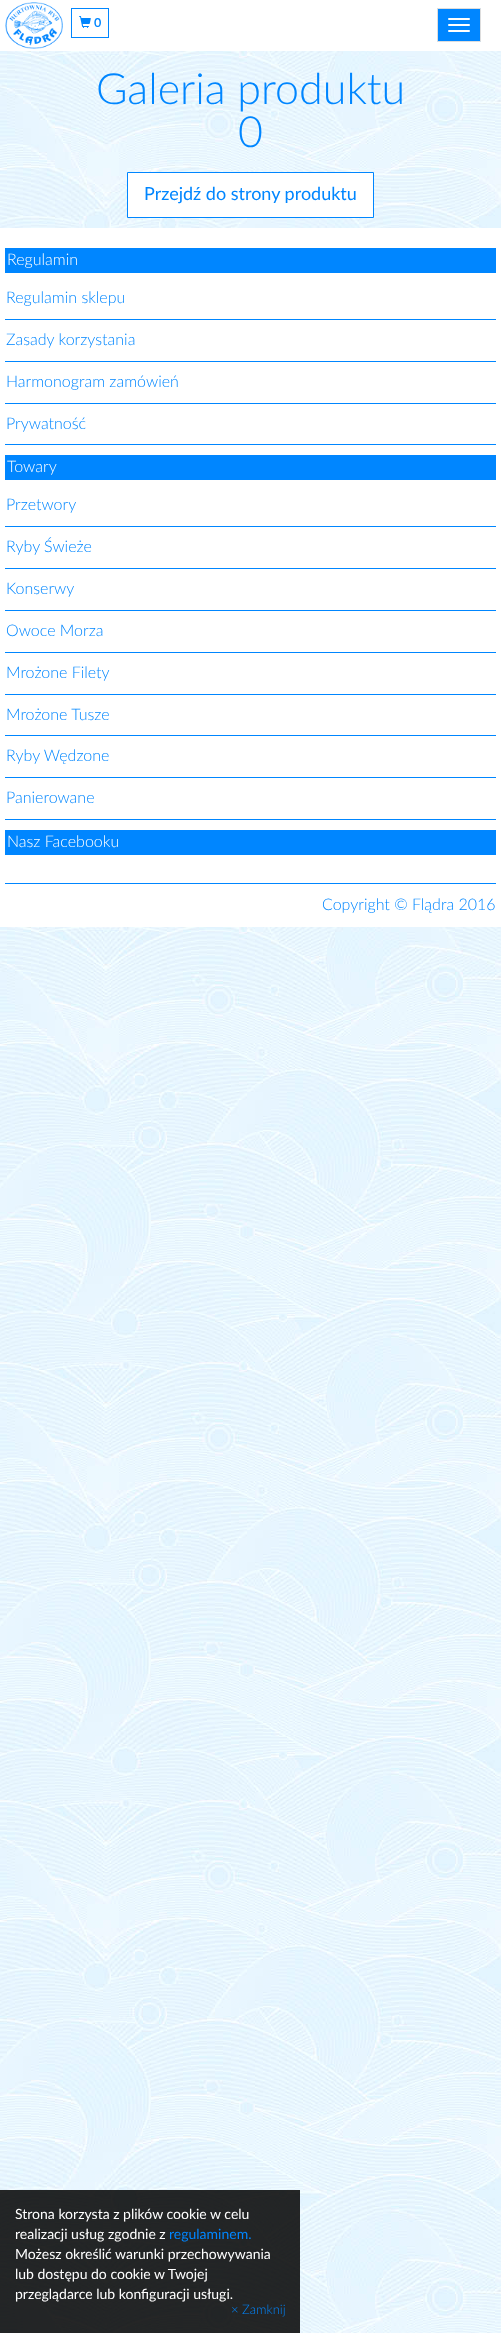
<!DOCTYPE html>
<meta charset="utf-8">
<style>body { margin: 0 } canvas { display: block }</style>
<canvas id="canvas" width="501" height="2333"></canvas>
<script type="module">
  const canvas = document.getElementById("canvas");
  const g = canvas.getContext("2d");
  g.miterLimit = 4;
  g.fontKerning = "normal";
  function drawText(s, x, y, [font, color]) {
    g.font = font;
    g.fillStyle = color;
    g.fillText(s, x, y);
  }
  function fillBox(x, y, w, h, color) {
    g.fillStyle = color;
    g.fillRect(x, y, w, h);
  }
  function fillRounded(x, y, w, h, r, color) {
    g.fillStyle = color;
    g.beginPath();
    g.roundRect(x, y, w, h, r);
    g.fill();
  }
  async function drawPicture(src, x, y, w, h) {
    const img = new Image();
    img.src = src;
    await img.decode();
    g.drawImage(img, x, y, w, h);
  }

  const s1 = ["bold 12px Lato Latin", "#0086FF"];
  const s2 = ["300 43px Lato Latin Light", "#0086FF"];
  const s3 = ["18px Lato Latin", "#0086FF"];
  const s4 = ["300 16px Lato Latin Light", "#FFFFFF"];
  const s5 = ["300 16px Lato Latin Light", "#0086FF"];
  const s6 = ["14px Lato Latin", "#FFFFFF"];
  const s7 = ["14px Lato Latin", "#0086FF"];
  const s8 = ["300 13px Lato Latin Light", "#0086FF"];

  fillBox(0, 0, 501, 2333, "#FFFFFF");
  await drawPicture("pic1.png", 0, 51, 501, 2282);
  await drawPicture("pic2.png", 5, 2, 58, 47);
  g.strokeStyle = "#0086FF";
  g.strokeRect(71.5, 8.5, 37, 29);
  await drawPicture("pic3.png", 79, 16, 12, 12);
  drawText("0", 94, 27, s1);
  g.beginPath();
  g.rect(437.5, 8.5, 43, 33);
  g.fill();
  g.strokeStyle = "#DDDDDD";
  g.stroke();
  fillRounded(448, 18, 22, 2, 1, "#FFFFFF");
  fillRounded(448, 24, 22, 2, 1, "#FFFFFF");
  fillRounded(448, 30, 22, 2, 1, "#FFFFFF");
  drawText("Galeria produktu", 96, 104, s2);
  drawText("0", 238, 147, s2);
  g.fillStyle = "#FFFFFF";
  g.beginPath();
  g.rect(127.5, 172.5, 246, 45);
  g.fill();
  g.strokeStyle = "#0086FF";
  g.stroke();
  drawText("Przejdź do strony produktu", 144, 200, s3);
  fillBox(0, 228, 501, 699, "#FFFFFF");
  fillBox(5, 248, 491, 25, "#0086FF");
  drawText("Regulamin", 7, 265, s4);
  fillBox(5, 319, 491, 1, "#0086FF");
  drawText("Regulamin sklepu", 6, 303, s5);
  fillBox(5, 361, 491, 1, "#0086FF");
  drawText("Zasady korzystania", 6, 345, s5);
  fillBox(5, 403, 491, 1, "#0086FF");
  drawText("Harmonogram zamówień", 6, 387, s5);
  fillBox(5, 444, 491, 1, "#0086FF");
  drawText("Prywatność", 6, 429, s5);
  fillBox(5, 455, 491, 25, "#0086FF");
  drawText("Towary", 7, 472, s4);
  fillBox(5, 526, 491, 1, "#0086FF");
  drawText("Przetwory", 6, 510, s5);
  fillBox(5, 568, 491, 1, "#0086FF");
  drawText("Ryby Świeże", 6, 552, s5);
  fillBox(5, 610, 491, 1, "#0086FF");
  drawText("Konserwy", 6, 594, s5);
  fillBox(5, 652, 491, 1, "#0086FF");
  drawText("Owoce Morza", 6, 636, s5);
  fillBox(5, 694, 491, 1, "#0086FF");
  drawText("Mrożone Filety", 6, 678, s5);
  fillBox(5, 735, 491, 1, "#0086FF");
  drawText("Mrożone Tusze", 6, 720, s5);
  fillBox(5, 777, 491, 1, "#0086FF");
  drawText("Ryby Wędzone", 6, 761, s5);
  fillBox(5, 819, 491, 1, "#0086FF");
  drawText("Panierowane", 6, 803, s5);
  fillBox(5, 830, 491, 25, "#0086FF");
  drawText("Nasz Facebooku", 7, 847, s4);
  fillBox(5, 883, 491, 1, "#0086FF");
  drawText("Copyright © Flądra 2016", 322, 910, s5);
  fillBox(0, 2190, 300, 143, "rgba(0, 0, 0, 0.85)");
  drawText("Strona korzysta z plików cookie w celu", 15, 2219, s6);
  drawText("realizacji usług zgodnie z", 15, 2239, s6);
  drawText("regulaminem.", 169, 2239, s7);
  drawText("Możesz określić warunki przechowywania", 15, 2259, s6);
  drawText("lub dostępu do cookie w Twojej", 15, 2279, s6);
  drawText("przeglądarce lub konfiguracji usługi.", 15, 2299, s6);
  drawText("× Zamknij", 231, 2314, s8);
</script>
